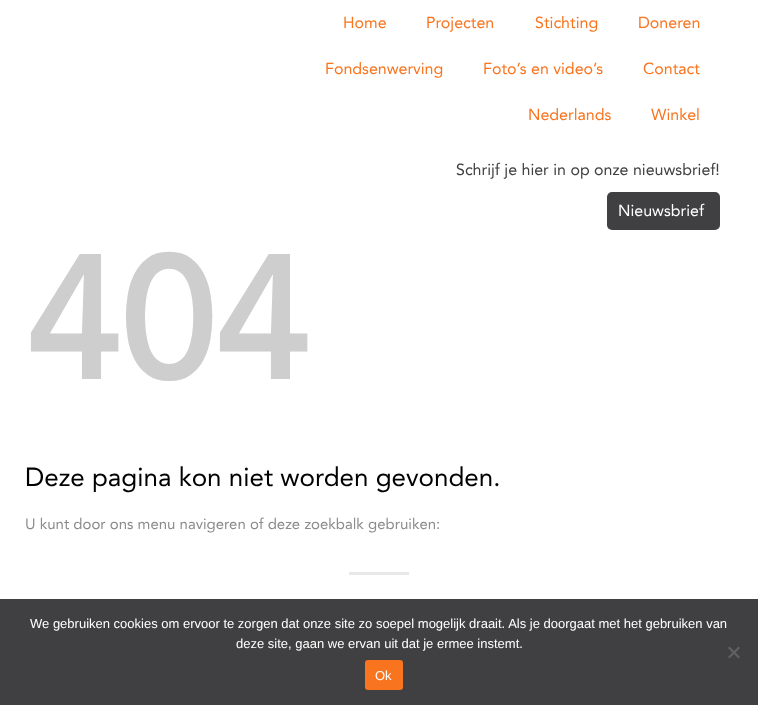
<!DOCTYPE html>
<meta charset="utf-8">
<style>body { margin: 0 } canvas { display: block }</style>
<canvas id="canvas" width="758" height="705"></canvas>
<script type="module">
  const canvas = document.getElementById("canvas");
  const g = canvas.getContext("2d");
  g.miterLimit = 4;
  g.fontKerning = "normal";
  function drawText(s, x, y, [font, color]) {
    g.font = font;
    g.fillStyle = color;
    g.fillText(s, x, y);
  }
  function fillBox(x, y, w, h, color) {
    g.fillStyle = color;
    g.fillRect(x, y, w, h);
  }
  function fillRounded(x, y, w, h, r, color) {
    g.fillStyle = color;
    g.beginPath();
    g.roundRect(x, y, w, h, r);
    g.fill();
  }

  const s1 = ["16px Avenir", "#F9741E"];
  const s2 = ["16px Avenir", "#404042"];
  const s3 = ["16px Avenir", "#FFFFFF"];
  const s4 = ["bold 170px Avenir", "#CECECE"];
  const s5 = ["26px Avenir", "#000000"];
  const s6 = ["15px Avenir", "#8C8C8C"];
  const s7 = ["13px Liberation Sans", "#FFFFFF"];

  fillBox(0, 0, 758, 705, "#FFFFFF");
  drawText("Home", 343, 28, s1);
  drawText("Projecten", 426, 28, s1);
  drawText("Stichting", 535, 28, s1);
  drawText("Doneren", 638, 28, s1);
  drawText("Fondsenwerving", 325, 74, s1);
  drawText("Foto’s en video’s", 483, 74, s1);
  drawText("Contact", 643, 74, s1);
  drawText("Nederlands", 528, 120, s1);
  drawText("Winkel", 651, 120, s1);
  drawText("Schrijf je hier in op onze nieuwsbrief!", 456, 175, s2);
  fillRounded(607, 192, 113, 38, 5, "#404042");
  drawText("Nieuwsbrief", 618, 216, s3);
  drawText("404", 25, 379, s4);
  drawText("Deze pagina kon niet worden gevonden.", 25, 486, s5);
  drawText("U kunt door ons menu navigeren of deze zoekbalk gebruiken:", 25, 529, s6);
  fillBox(349, 572, 60, 3, "#E8E8E8");
  fillBox(0, 599, 758, 106, "#404042");
  drawText("We gebruiken cookies om ervoor te zorgen dat onze site zo soepel mogelijk draait. Als je doorgaat met het gebruiken van", 30, 628, s7);
  drawText("deze site, gaan we ervan uit dat je ermee instemt.", 236, 648, s7);
  g.fillStyle = "#606061";
  g.beginPath();
  g.moveTo(738.5, 646.5);
  g.lineTo(740, 648);
  g.lineTo(729.5, 658.5);
  g.lineTo(728, 657);
  g.closePath();
  g.fill();
  g.beginPath();
  g.moveTo(728, 648);
  g.lineTo(729.5, 646.5);
  g.lineTo(740, 657);
  g.lineTo(738.5, 658.5);
  g.closePath();
  g.fill();
  fillRounded(365, 660, 38, 30, 3, "#F9741E");
  drawText("Ok", 375, 680, s7);
</script>
